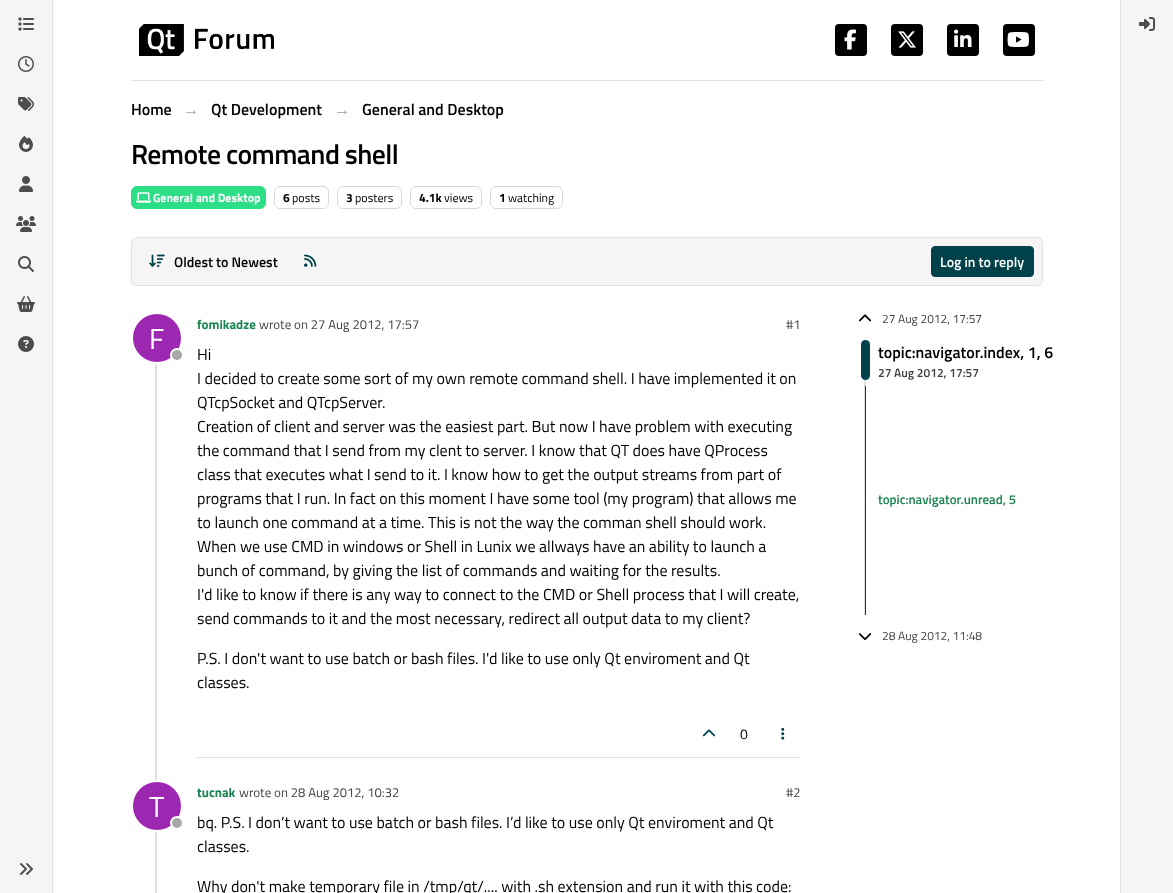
<!DOCTYPE html>
<meta charset="utf-8">
<style>body { margin: 0 } canvas { display: block }</style>
<canvas id="canvas" width="1173" height="893"></canvas>
<script type="module">
  const canvas = document.getElementById("canvas");
  const g = canvas.getContext("2d");
  g.miterLimit = 4;
  g.fontKerning = "normal";
  function drawText(s, x, y, [font, color]) {
    g.font = font;
    g.fillStyle = color;
    g.fillText(s, x, y);
  }
  function fillBox(x, y, w, h, color) {
    g.fillStyle = color;
    g.fillRect(x, y, w, h);
  }
  function fillRounded(x, y, w, h, r, color) {
    g.fillStyle = color;
    g.beginPath();
    g.roundRect(x, y, w, h, r);
    g.fill();
  }
  async function drawPicture(src, x, y, w, h) {
    const img = new Image();
    img.src = src;
    await img.decode();
    g.drawImage(img, x, y, w, h);
  }

  const s1 = ["600 16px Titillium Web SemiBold", "#000000"];
  const s2 = ["bold 16px Liberation Sans", "#9E9E9E"];
  const s3 = ["600 27.75px Titillium Web SemiBold", "#000000"];
  const s4 = ["bold 12px Titillium Web", "#FFFFFF"];
  const s5 = ["bold 12px Titillium Web", "#000000"];
  const s6 = ["12px Titillium Web", "#000000"];
  const s7 = ["600 14px Titillium Web SemiBold", "#000000"];
  const s8 = ["600 14px Titillium Web SemiBold", "#FFFFFF"];
  const s9 = ["29px Titillium Web", "#FFFFFF"];
  const s10 = ["bold 13px Titillium Web", "#1A8550"];
  const s11 = ["13px Titillium Web", "#404040"];
  const s12 = ["16px Titillium Web", "#000000"];
  const s13 = ["14px Titillium Web", "#000000"];
  const s14 = ["12px Titillium Web", "#404040"];
  const s15 = ["600 12px Titillium Web SemiBold", "#404040"];
  const s16 = ["600 13px Titillium Web SemiBold", "#1A8550"];

  fillBox(0, 0, 1173, 893, "#FFFFFF");
  fillBox(0, 0, 52, 893, "#F5F5F5");
  fillBox(52, 0, 1, 893, "#E0E0E0");
  await drawPicture("pic1.png", 18, 17, 16, 14);
  await drawPicture("pic2.png", 18, 56, 16, 16);
  await drawPicture("pic3.png", 18, 97, 16, 14);
  await drawPicture("pic4.png", 19, 136, 14, 16);
  await drawPicture("pic5.png", 19, 176, 14, 16);
  await drawPicture("pic6.png", 16, 216, 20, 16);
  await drawPicture("pic7.png", 18, 256, 16, 16);
  await drawPicture("pic8.png", 17, 296, 18, 16);
  await drawPicture("pic9.png", 18, 336, 16, 16);
  await drawPicture("pic10.png", 20, 863, 13, 12);
  fillBox(131, 80, 912, 1, "#E0E0E0");
  await drawPicture("pic11.png", 139, 24, 135, 32);
  fillRounded(835, 24, 32, 32, 4, "#000000");
  await drawPicture("pic12.png", 844, 29, 12, 21);
  fillRounded(891, 24, 32, 32, 4, "#000000");
  await drawPicture("pic13.png", 898, 31, 18, 17);
  fillRounded(947, 24, 32, 32, 4, "#000000");
  await drawPicture("pic14.png", 954, 29, 18, 18);
  fillRounded(1003, 24, 32, 32, 4, "#000000");
  await drawPicture("pic15.png", 1007, 32, 22, 15);
  drawText("Home", 131, 115, s1);
  drawText("→", 183, 115, s2);
  drawText("Qt Development", 211, 115, s1);
  drawText("→", 334, 115, s2);
  drawText("General and Desktop", 362, 115, s1);
  g.letterSpacing = "-0.6px";
  drawText("Remote command shell", 131, 164, s3);
  g.fillStyle = "#2CDE85";
  g.beginPath();
  g.roundRect(131.5, 186.5, 134, 22, 5.5);
  g.fill();
  g.strokeStyle = "#2CDE85";
  g.stroke();
  await drawPicture("pic16.png", 136, 192, 15, 11);
  g.letterSpacing = "0px";
  drawText("General and Desktop", 153, 202, s4);
  g.beginPath();
  g.roundRect(274.5, 186.5, 54, 22, 5.5);
  g.strokeStyle = "#D9D9D9";
  g.stroke();
  drawText("6", 283, 202, s5);
  drawText("posts", 292, 202, s6);
  g.beginPath();
  g.roundRect(337.5, 186.5, 64, 22, 5.5);
  g.stroke();
  drawText("3", 346, 202, s5);
  drawText("posters", 355, 202, s6);
  g.beginPath();
  g.roundRect(410.5, 186.5, 71, 22, 5.5);
  g.stroke();
  drawText("4.1k", 419, 202, s5);
  drawText("views", 444, 202, s6);
  g.beginPath();
  g.roundRect(490.5, 186.5, 72, 22, 5.5);
  g.stroke();
  drawText("1", 499, 202, s5);
  drawText("watching", 508, 202, s6);
  g.fillStyle = "#F5F5F5";
  g.beginPath();
  g.roundRect(131.5, 237.5, 911, 48, 5.5);
  g.fill();
  g.strokeStyle = "#E0E0E0";
  g.stroke();
  await drawPicture("pic17.png", 149, 254, 16, 13);
  drawText("Oldest to Newest", 174, 267, s7);
  await drawPicture("pic18.png", 304, 254, 13, 13);
  g.fillStyle = "#00414A";
  g.beginPath();
  g.roundRect(931.5, 246.5, 102, 30, 3.5);
  g.fill();
  g.strokeStyle = "#00414A";
  g.stroke();
  drawText("Log in to reply", 940, 267, s8);
  fillBox(155, 314, 2, 579, "#E0E0E0");
  g.beginPath();
  g.arc(157, 338, 25, 0, Math.PI * 2);
  g.strokeStyle = "#FFFFFF";
  g.lineWidth = 2;
  g.stroke();
  g.fillStyle = "#9C27B0";
  g.beginPath();
  g.arc(157, 338, 24, 0, Math.PI * 2);
  g.fill();
  drawText("F", 149, 349, s9);
  g.fillStyle = "#A6A6A6";
  g.beginPath();
  g.arc(177, 355, 6, 0, Math.PI * 2);
  g.fill();
  g.stroke();
  drawText("fomikadze", 197, 329, s10);
  drawText("wrote on 27 Aug 2012, 17:57", 259, 329, s11);
  drawText("#1", 786, 329, s11);
  drawText("Hi", 197, 360, s12);
  drawText("I decided to create some sort of my own remote command shell. I have implemented it on", 197, 384, s12);
  drawText("QTcpSocket and QTcpServer.", 197, 408, s12);
  drawText("Creation of client and server was the easiest part. But now I have problem with executing", 197, 432, s12);
  drawText("the command that I send from my clent to server. I know that QT does have QProcess", 197, 456, s12);
  drawText("class that executes what I send to it. I know how to get the output streams from part of", 197, 480, s12);
  drawText("programs that I run. In fact on this moment I have some tool (my program) that allows me", 197, 504, s12);
  drawText("to launch one command at a time. This is not the way the comman shell should work.", 197, 528, s12);
  drawText("When we use CMD in windows or Shell in Lunix we allways have an ability to launch a", 197, 552, s12);
  drawText("bunch of command, by giving the list of commands and waiting for the results.", 197, 576, s12);
  drawText("I'd like to know if there is any way to connect to the CMD or Shell process that I will create,", 197, 600, s12);
  drawText("send commands to it and the most necessary, redirect all output data to my client?", 197, 624, s12);
  drawText("P.S. I don't want to use batch or bash files. I'd like to use only Qt enviroment and Qt", 197, 664, s12);
  drawText("classes.", 197, 688, s12);
  fillBox(197, 757, 603, 1, "#E0E0E0");
  await drawPicture("pic19.png", 702, 729, 14, 8);
  drawText("0", 740, 739, s13);
  await drawPicture("pic20.png", 781, 727, 4, 13);
  g.beginPath();
  g.arc(157, 806, 25, 0, Math.PI * 2);
  g.stroke();
  g.fillStyle = "#9C27B0";
  g.beginPath();
  g.arc(157, 806, 24, 0, Math.PI * 2);
  g.fill();
  drawText("T", 149, 817, s9);
  g.fillStyle = "#A6A6A6";
  g.beginPath();
  g.arc(177, 823, 6, 0, Math.PI * 2);
  g.fill();
  g.stroke();
  drawText("tucnak", 197, 797, s10);
  drawText("wrote on 28 Aug 2012, 10:32", 239, 797, s11);
  drawText("#2", 786, 797, s11);
  drawText("bq. P.S. I don’t want to use batch or bash files. I’d like to use only Qt enviroment and Qt", 197, 828, s12);
  drawText("classes.", 197, 852, s12);
  drawText("Why don't make temporary file in /tmp/qt/.... with .sh extension and run it with this code:", 197, 892, s12);
  await drawPicture("pic21.png", 858, 314, 14, 8);
  drawText("27 Aug 2012, 17:57", 882, 323, s14);
  fillBox(864, 340, 2, 275, "#E0E0E0");
  fillRounded(861, 340, 9, 40, 4.5, "#00414A");
  drawText("topic:navigator.index, 1, 6", 878, 358, s1);
  drawText("27 Aug 2012, 17:57", 878, 377, s15);
  fillBox(865, 386, 1, 229, "#00414A");
  drawText("topic:navigator.unread, 5", 878, 504, s16);
  await drawPicture("pic22.png", 859, 633, 12, 7);
  drawText("28 Aug 2012, 11:48", 882, 640, s14);
  fillBox(1121, 0, 52, 893, "#F5F5F5");
  fillBox(1120, 0, 1, 893, "#E0E0E0");
  await drawPicture("pic23.png", 1139, 17, 16, 14);
</script>
